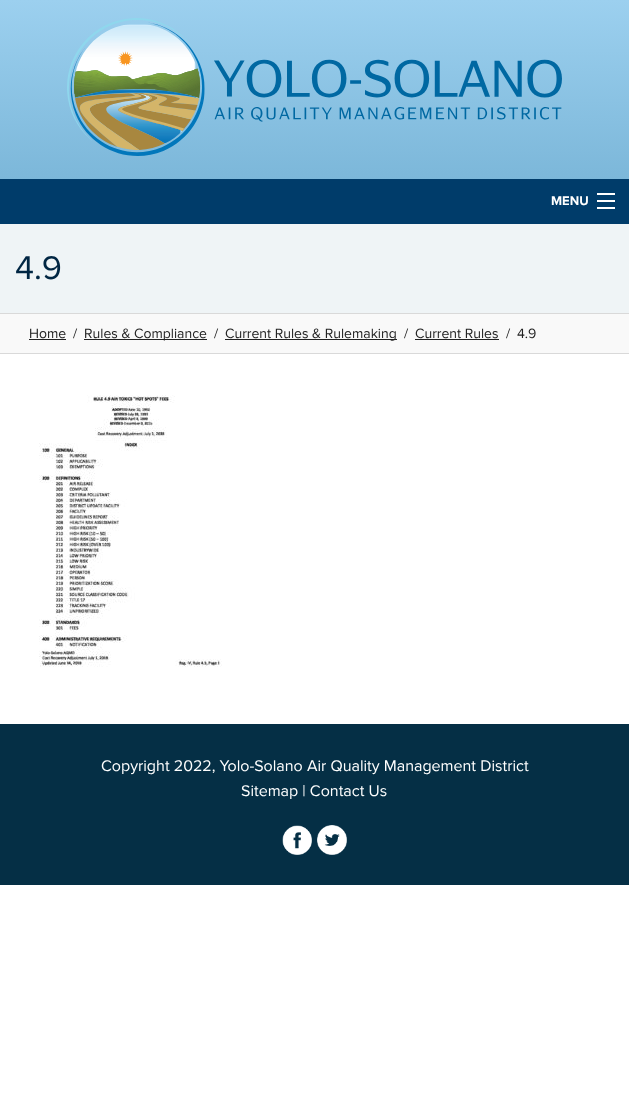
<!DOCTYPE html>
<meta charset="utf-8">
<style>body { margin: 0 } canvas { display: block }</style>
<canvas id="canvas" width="629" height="1094"></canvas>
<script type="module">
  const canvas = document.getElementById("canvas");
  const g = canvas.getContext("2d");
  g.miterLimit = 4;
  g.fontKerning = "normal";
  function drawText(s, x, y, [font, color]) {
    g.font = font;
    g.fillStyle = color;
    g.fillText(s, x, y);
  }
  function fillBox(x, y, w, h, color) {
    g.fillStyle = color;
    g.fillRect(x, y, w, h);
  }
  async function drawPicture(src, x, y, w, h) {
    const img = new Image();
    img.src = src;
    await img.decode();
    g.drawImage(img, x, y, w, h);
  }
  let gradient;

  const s1 = ["bold 13px Proxima Nova", "#FFFFFF"];
  const s2 = ["34px Proxima Nova", "#002643"];
  const s3 = ["14px Proxima Nova", "#222222"];
  const s4 = ["16px Proxima Nova", "#FFFFFF"];

  fillBox(0, 0, 629, 1094, "#FFFFFF");
  gradient = g.createLinearGradient(315, 0, 315, 224);
  gradient.addColorStop(0, "#9CD0EF");
  gradient.addColorStop(1, "#74B1D4");
  g.fillStyle = gradient;
  g.fillRect(0, 0, 629, 179);
  await drawPicture("pic1.png", 67, 18, 495, 138);
  fillBox(0, 179, 629, 45, "#003C6A");
  drawText("MENU", 551, 205, s1);
  fillBox(597, 207, 18, 2, "#FFFFFF");
  fillBox(597, 200, 18, 2, "#FFFFFF");
  fillBox(597, 193, 18, 2, "#FFFFFF");
  fillBox(0, 224, 629, 89, "#EFF4F6");
  fillBox(0, 313, 629, 1, "#D9D9D9");
  drawText("4.9", 15, 279, s2);
  fillBox(0, 314, 629, 39, "#F9F9F9");
  fillBox(0, 353, 629, 1, "#D9D9D9");
  drawText("Home", 29, 338, s3);
  fillBox(29, 339, 37, 1, "#222222");
  drawText("/", 73, 338, s3);
  fillBox(84, 339, 123, 1, "#222222");
  drawText("Rules & Compliance", 84, 338, s3);
  drawText("/", 214, 338, s3);
  fillBox(225, 339, 172, 1, "#222222");
  drawText("Current Rules & Rulemaking", 225, 338, s3);
  drawText("/", 404, 338, s3);
  drawText("Current Rules", 415, 338, s3);
  fillBox(415, 339, 84, 1, "#222222");
  drawText("/", 506, 338, s3);
  drawText("4.9", 517, 338, s3);
  await drawPicture("pic2.png", 39, 395, 183, 272);
  fillBox(0, 724, 629, 161, "#052F45");
  drawText("Copyright 2022, Yolo-Solano Air Quality Management District", 101, 771, s4);
  drawText("Sitemap | Contact Us", 241, 796, s4);
  await drawPicture("pic3.png", 282, 825, 30, 30);
  await drawPicture("pic4.png", 317, 825, 30, 30);
</script>
